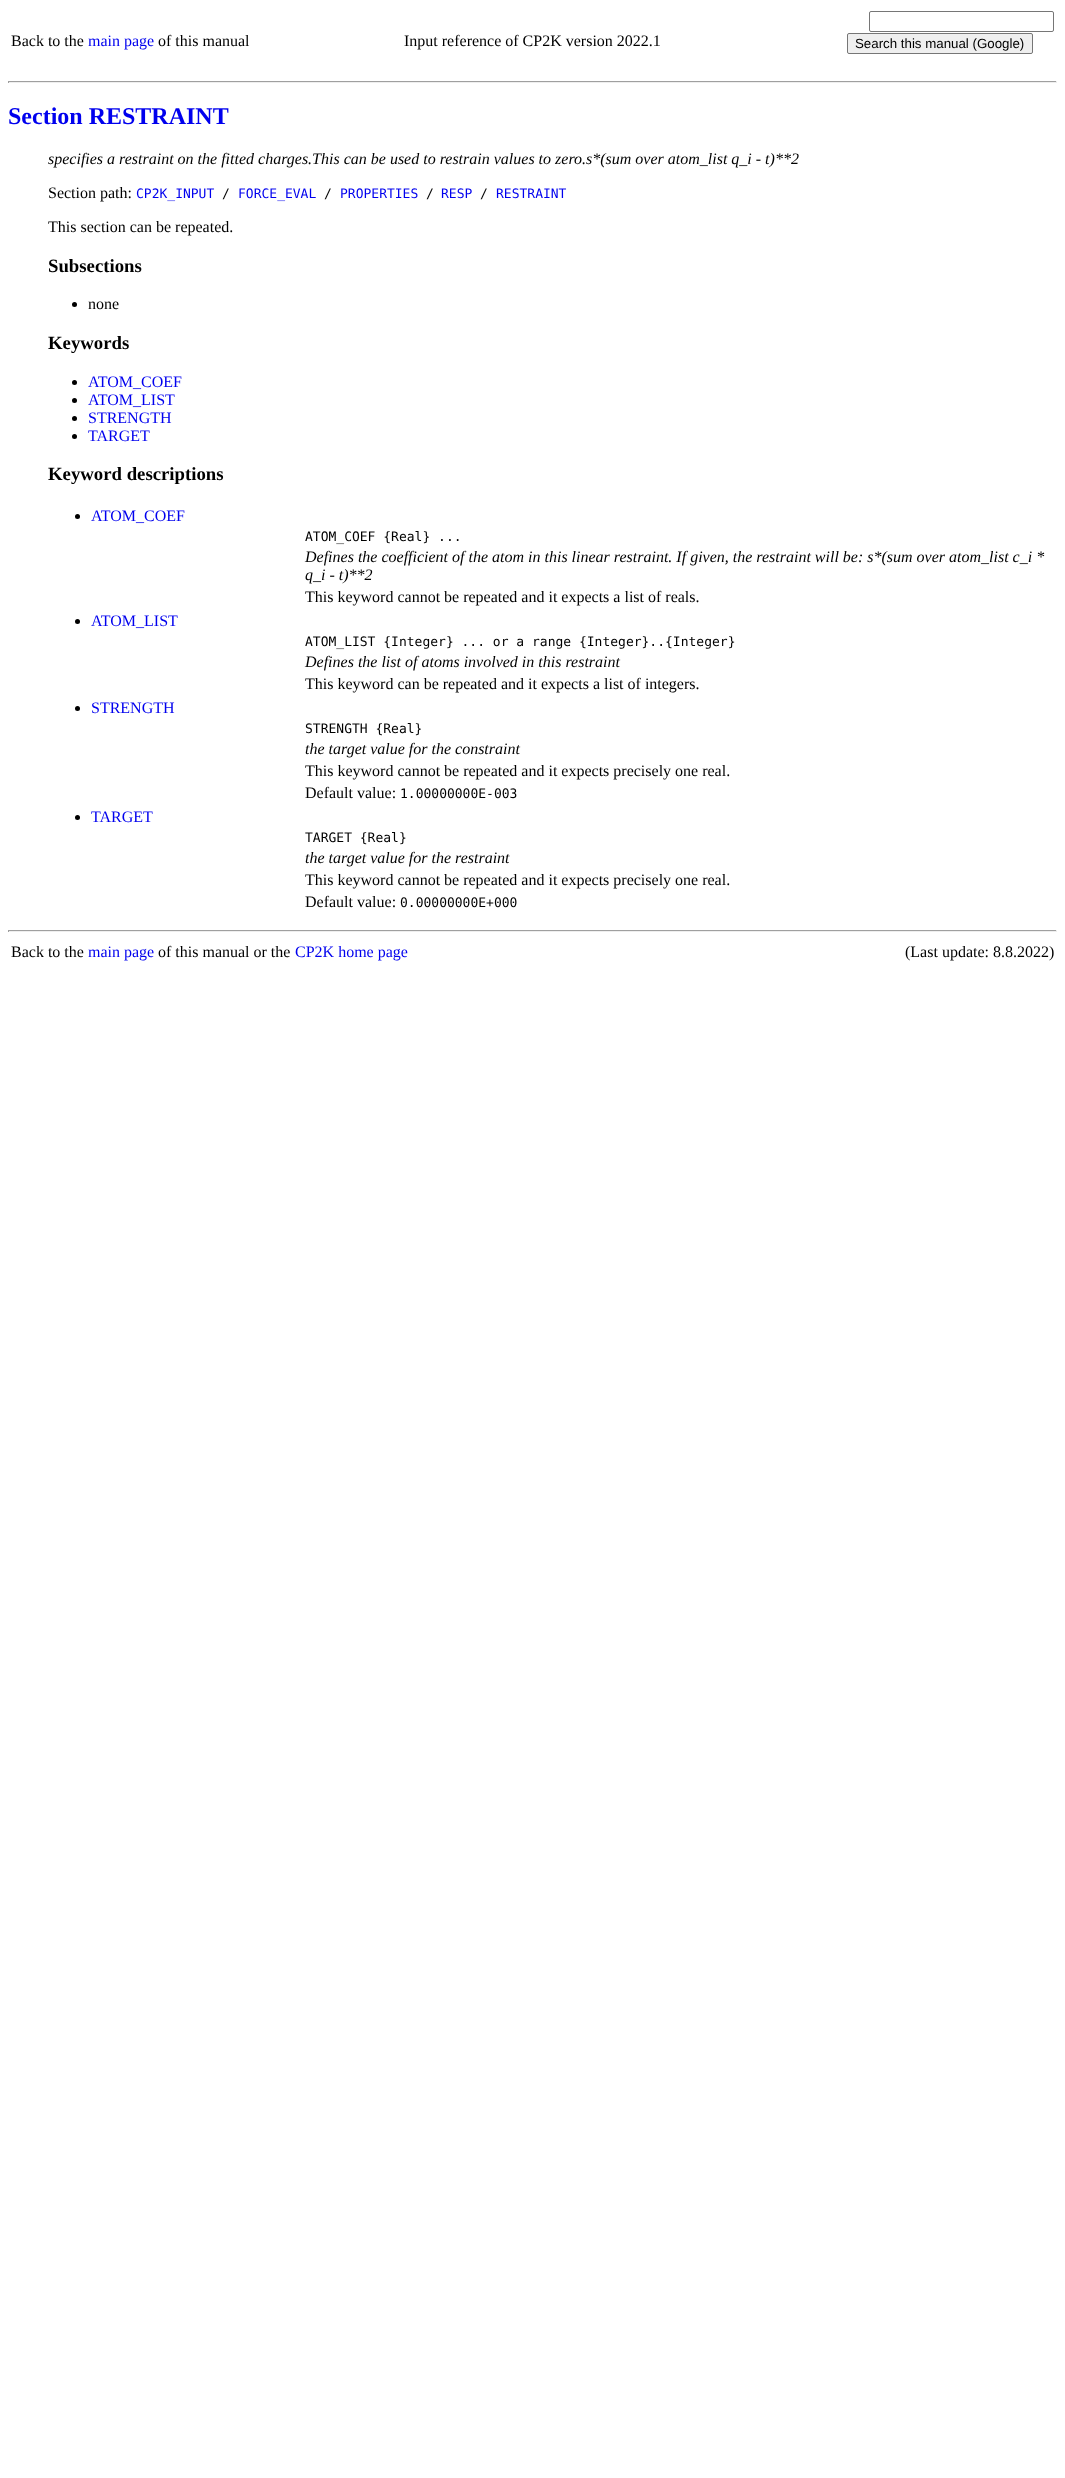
<!DOCTYPE html>
<meta charset="utf-8">
<style>body { margin: 0 } canvas { display: block }</style>
<canvas id="canvas" width="1065" height="2478"></canvas>
<script type="module">
  const canvas = document.getElementById("canvas");
  const g = canvas.getContext("2d");
  g.miterLimit = 4;
  g.fontKerning = "normal";
  function drawText(s, x, y, [font, color]) {
    g.font = font;
    g.fillStyle = color;
    g.fillText(s, x, y);
  }
  function fillBox(x, y, w, h, color) {
    g.fillStyle = color;
    g.fillRect(x, y, w, h);
  }

  const s1 = ["16px Liberation Serif", "#000000"];
  const s2 = ["16px Liberation Serif", "#0000EE"];
  const s3 = ["13.3px Liberation Sans", "#000000"];
  const s4 = ["bold 24px Liberation Serif", "#0000EE"];
  const s5 = ["italic 16px Liberation Serif", "#000000"];
  const s6 = ["13px DejaVu Sans Mono", "#0000EE"];
  const s7 = ["13px DejaVu Sans Mono", "#000000"];
  const s8 = ["bold 18.75px Liberation Serif", "#000000"];

  fillBox(0, 0, 1065, 2478, "#FFFFFF");
  drawText("Back to the", 11, 46, s1);
  drawText("main page", 88, 46, s2);
  drawText("of this manual", 158, 46, s1);
  drawText("Input reference of CP2K version 2022.1", 404, 46, s1);
  g.beginPath();
  g.roundRect(869.5, 11.5, 184, 20, 1.5);
  g.strokeStyle = "#767676";
  g.stroke();
  g.fillStyle = "#EFEFEF";
  g.beginPath();
  g.roundRect(847.5, 33.5, 185, 20, 1.5);
  g.fill();
  g.stroke();
  drawText("Search this manual (Google)", 855, 48, s3);
  fillBox(8, 81, 1049, 1, "#9F9F9F");
  fillBox(1056, 81, 1, 2, "#EEEEEE");
  fillBox(8, 82, 1049, 1, "#EEEEEE");
  fillBox(8, 81, 1, 2, "#9F9F9F");
  drawText("Section RESTRAINT", 8, 124, s4);
  drawText("specifies a restraint on the fitted charges.This can be used to restrain values to zero.s*(sum over atom_list q_i - t)**2", 48, 164, s5);
  drawText("Section path:", 48, 198, s1);
  drawText("CP2K_INPUT", 136, 198, s6);
  drawText("/", 222, 198, s7);
  drawText("FORCE_EVAL", 238, 198, s6);
  drawText("/", 324, 198, s7);
  drawText("PROPERTIES", 340, 198, s6);
  drawText("/", 426, 198, s7);
  drawText("RESP", 441, 198, s6);
  drawText("/", 480, 198, s7);
  drawText("RESTRAINT", 496, 198, s6);
  drawText("This section can be repeated.", 48, 232, s1);
  drawText("Subsections", 48, 272, s8);
  g.beginPath();
  g.arc(74.5, 304.5, 2.5, 0, Math.PI * 2);
  g.fill();
  drawText("none", 88, 309, s1);
  drawText("Keywords", 48, 349, s8);
  g.beginPath();
  g.arc(74.5, 382.5, 2.5, 0, Math.PI * 2);
  g.fill();
  drawText("ATOM_COEF", 88, 387, s2);
  g.fillStyle = "#000000";
  g.beginPath();
  g.arc(74.5, 400.5, 2.5, 0, Math.PI * 2);
  g.fill();
  drawText("ATOM_LIST", 88, 405, s2);
  g.fillStyle = "#000000";
  g.beginPath();
  g.arc(74.5, 418.5, 2.5, 0, Math.PI * 2);
  g.fill();
  drawText("STRENGTH", 88, 423, s2);
  g.fillStyle = "#000000";
  g.beginPath();
  g.arc(74.5, 436.5, 2.5, 0, Math.PI * 2);
  g.fill();
  drawText("TARGET", 88, 441, s2);
  drawText("Keyword descriptions", 48, 480, s8);
  g.beginPath();
  g.arc(77.5, 516.5, 2.5, 0, Math.PI * 2);
  g.fill();
  drawText("ATOM_COEF", 91, 521, s2);
  drawText("ATOM_COEF {Real} ...", 305, 541, s7);
  drawText("Defines the coefficient of the atom in this linear restraint. If given, the restraint will be: s*(sum over atom_list c_i *", 305, 562, s5);
  drawText("q_i - t)**2", 305, 580, s5);
  drawText("This keyword cannot be repeated and it expects a list of reals.", 305, 602, s1);
  g.beginPath();
  g.arc(77.5, 621.5, 2.5, 0, Math.PI * 2);
  g.fill();
  drawText("ATOM_LIST", 91, 626, s2);
  drawText("ATOM_LIST {Integer} ... or a range {Integer}..{Integer}", 305, 646, s7);
  drawText("Defines the list of atoms involved in this restraint", 305, 667, s5);
  drawText("This keyword can be repeated and it expects a list of integers.", 305, 689, s1);
  g.beginPath();
  g.arc(77.5, 708.5, 2.5, 0, Math.PI * 2);
  g.fill();
  drawText("STRENGTH", 91, 713, s2);
  drawText("STRENGTH {Real}", 305, 733, s7);
  drawText("the target value for the constraint", 305, 754, s5);
  drawText("This keyword cannot be repeated and it expects precisely one real.", 305, 776, s1);
  drawText("Default value:", 305, 798, s1);
  drawText("1.00000000E-003", 400, 798, s7);
  g.beginPath();
  g.arc(77.5, 817.5, 2.5, 0, Math.PI * 2);
  g.fill();
  drawText("TARGET", 91, 822, s2);
  drawText("TARGET {Real}", 305, 842, s7);
  drawText("the target value for the restraint", 305, 863, s5);
  drawText("This keyword cannot be repeated and it expects precisely one real.", 305, 885, s1);
  drawText("Default value:", 305, 907, s1);
  drawText("0.00000000E+000", 400, 907, s7);
  fillBox(8, 930, 1049, 1, "#9F9F9F");
  fillBox(1056, 930, 1, 2, "#EEEEEE");
  fillBox(8, 931, 1049, 1, "#EEEEEE");
  fillBox(8, 930, 1, 2, "#9F9F9F");
  drawText("Back to the", 11, 957, s1);
  drawText("main page", 88, 957, s2);
  drawText("of this manual or the", 158, 957, s1);
  drawText("CP2K home page", 295, 957, s2);
  drawText("(Last update: 8.8.2022)", 905, 957, s1);
</script>
